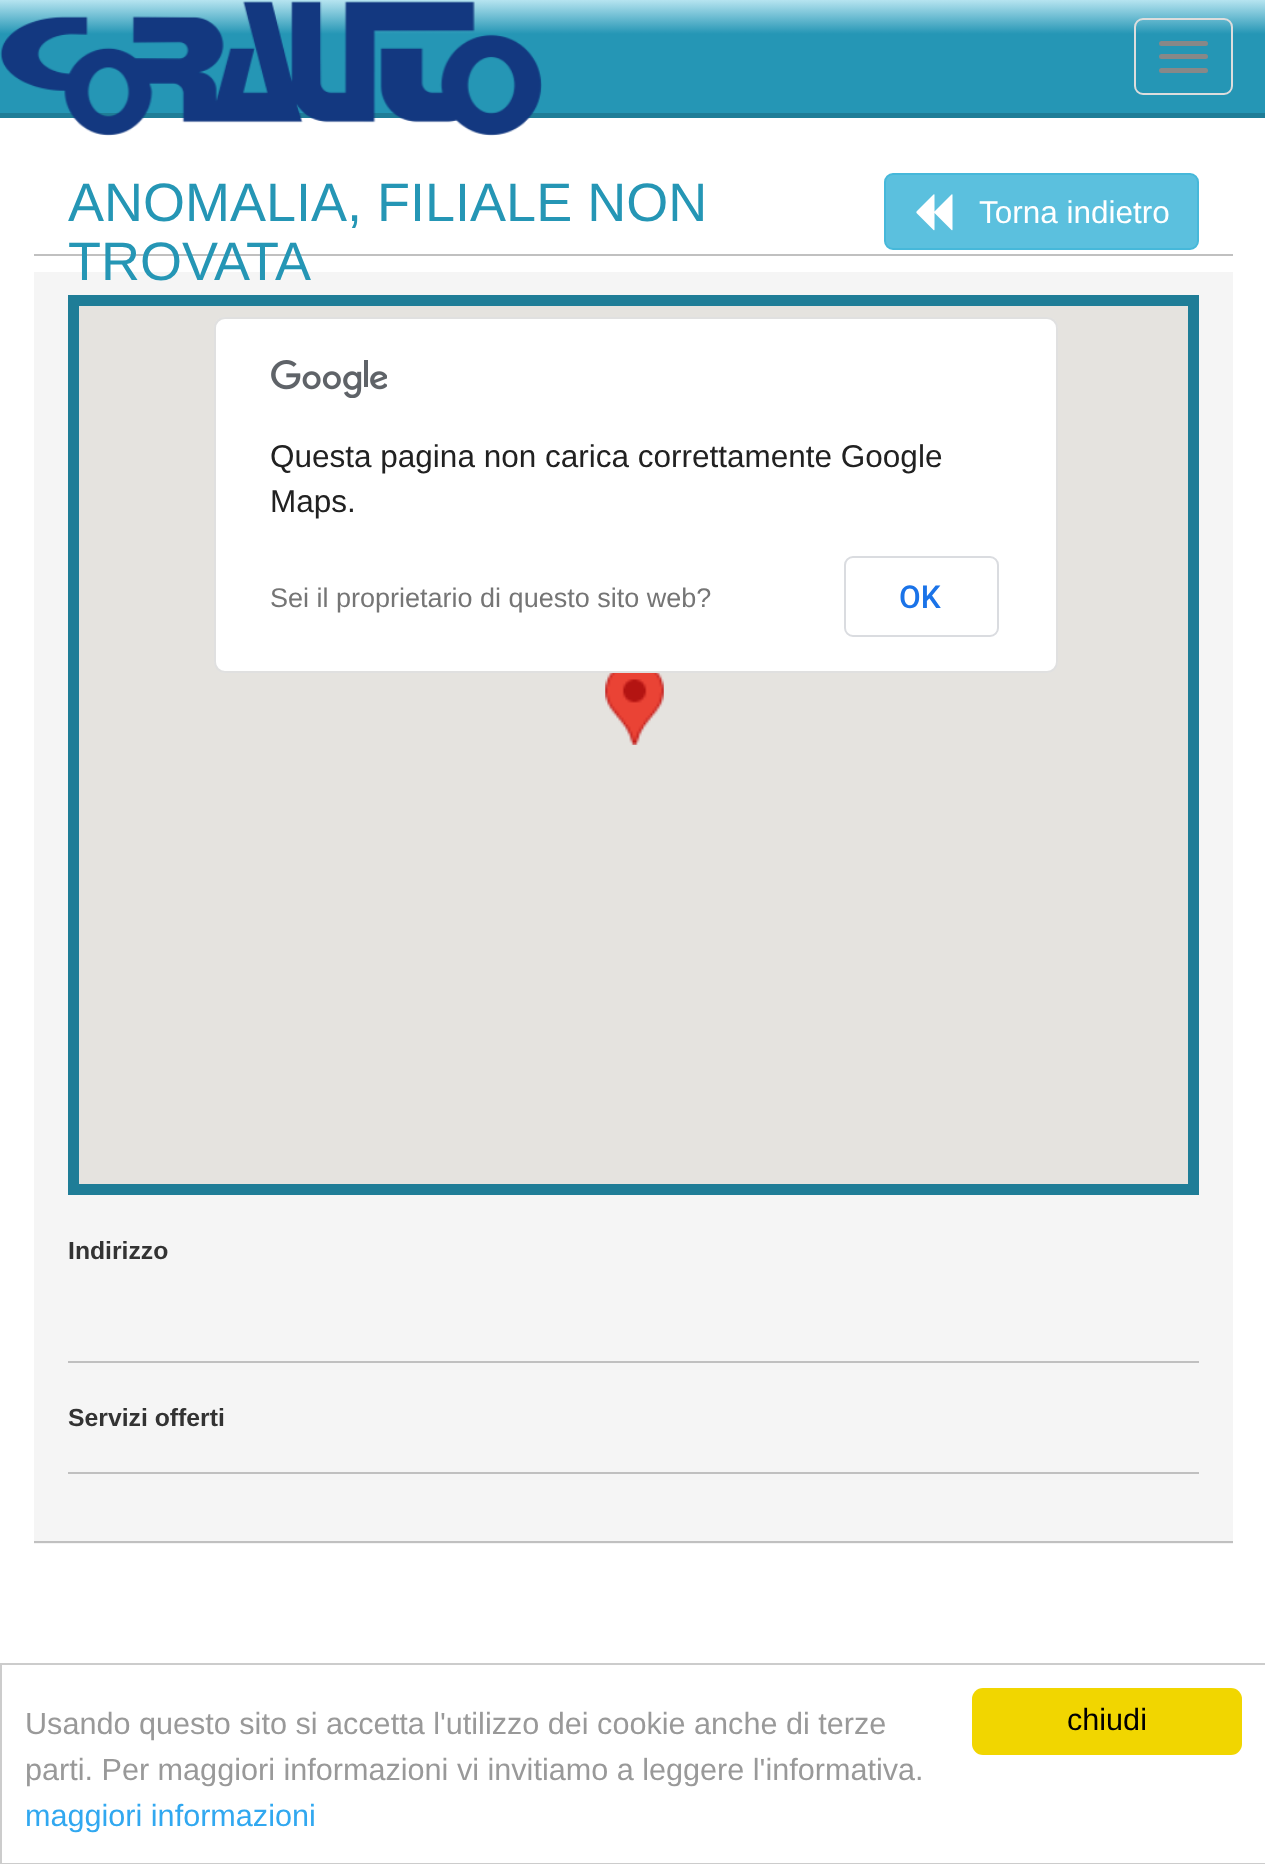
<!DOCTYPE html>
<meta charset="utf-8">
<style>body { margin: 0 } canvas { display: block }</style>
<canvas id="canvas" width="1265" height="1864"></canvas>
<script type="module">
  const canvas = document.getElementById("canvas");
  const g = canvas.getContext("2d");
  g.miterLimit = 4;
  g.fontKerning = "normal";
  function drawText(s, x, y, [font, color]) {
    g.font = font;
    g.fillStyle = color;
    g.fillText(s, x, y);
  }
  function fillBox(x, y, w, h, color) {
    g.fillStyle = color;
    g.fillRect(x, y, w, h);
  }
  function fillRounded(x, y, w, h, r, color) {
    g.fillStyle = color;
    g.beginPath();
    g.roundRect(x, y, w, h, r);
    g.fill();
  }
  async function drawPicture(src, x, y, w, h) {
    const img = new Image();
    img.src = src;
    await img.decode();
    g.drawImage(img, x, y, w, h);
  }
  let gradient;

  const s1 = ["54px Liberation Sans", "#2596B5"];
  const s2 = ["31.5px Liberation Sans", "#FFFFFF"];
  const s3 = ["31.5px Liberation Sans", "#212121"];
  const s4 = ["27px Liberation Sans", "#757575"];
  const s5 = ["500 31.5px Roboto", "#1A73E8"];
  const s6 = ["bold 24.75px Liberation Sans", "#333333"];
  const s7 = ["30.6px Liberation Sans", "#999999"];
  const s8 = ["30.6px Liberation Sans", "#31A8F0"];
  const s9 = ["30.6px Liberation Sans", "#000000"];

  fillBox(0, 0, 1265, 1864, "#FFFFFF");
  gradient = g.createLinearGradient(633, 0, 633, 113);
  gradient.addColorStop(0, "#B6E4F0");
  gradient.addColorStop(0.3, "#2596B5");
  g.fillStyle = gradient;
  g.fillRect(0, 0, 1265, 113);
  fillBox(0, 113, 1265, 5, "#1F7D97");
  await drawPicture("pic1.png", 0, 1, 542, 135);
  g.beginPath();
  g.roundRect(1135, 19, 97, 75, 8);
  g.strokeStyle = "#DDDDDD";
  g.lineWidth = 2;
  g.stroke();
  fillRounded(1159, 41, 49, 5, 2.5, "#888888");
  fillRounded(1159, 54, 49, 5, 2.5, "#888888");
  fillRounded(1159, 68, 49, 5, 2.5, "#888888");
  fillBox(34, 254, 1199, 2, "#C0C0C0");
  drawText("ANOMALIA, FILIALE NON", 68, 221, s1);
  fillBox(34, 272, 1199, 1272, "#F5F5F5");
  drawText("TROVATA", 68, 280, s1);
  g.fillStyle = "#5BC0DE";
  g.beginPath();
  g.roundRect(885, 174, 313, 75, 8);
  g.fill();
  g.strokeStyle = "#46B8DA";
  g.stroke();
  await drawPicture("pic2.png", 916, 194, 37, 37);
  drawText("Torna indietro", 979, 223, s2);
  fillBox(34, 1541, 1199, 2, "#C0C0C0");
  g.strokeStyle = "#1F7D97";
  g.lineWidth = 11;
  g.strokeRect(73.5, 300.5, 1120, 889);
  fillBox(79, 306, 1109, 878, "#E5E3DF");
  await drawPicture("pic3.png", 605, 673, 59, 72);
  fillRounded(214, 317, 844, 356, 11, "#FFFFFF");
  g.beginPath();
  g.roundRect(215, 318, 842, 354, 10);
  g.strokeStyle = "rgba(0, 0, 0, 0.12)";
  g.lineWidth = 2;
  g.stroke();
  await drawPicture("pic4.png", 271, 360, 116, 38);
  drawText("Questa pagina non carica correttamente Google", 270, 467, s3);
  drawText("Maps.", 270, 512, s3);
  drawText("Sei il proprietario di questo sito web?", 270, 607, s4);
  g.beginPath();
  g.roundRect(845, 557, 153, 79, 8);
  g.strokeStyle = "#DADCE0";
  g.stroke();
  drawText("OK", 899, 608, s5);
  fillBox(68, 1361, 1131, 2, "#C0C0C0");
  drawText("Indirizzo", 68, 1259, s6);
  fillBox(68, 1472, 1131, 2, "#C0C0C0");
  drawText("Servizi offerti", 68, 1426, s6);
  g.strokeStyle = "#CCCCCC";
  g.strokeRect(1, 1664, 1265, 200);
  drawText("Usando questo sito si accetta l'utilizzo dei cookie anche di terze", 25, 1734, s7);
  drawText("parti. Per maggiori informazioni vi invitiamo a leggere l'informativa.", 25, 1780, s7);
  drawText("maggiori informazioni", 25, 1826, s8);
  fillRounded(972, 1688, 270, 67, 11, "#F1D600");
  drawText("chiudi", 1067, 1730, s9);
</script>
